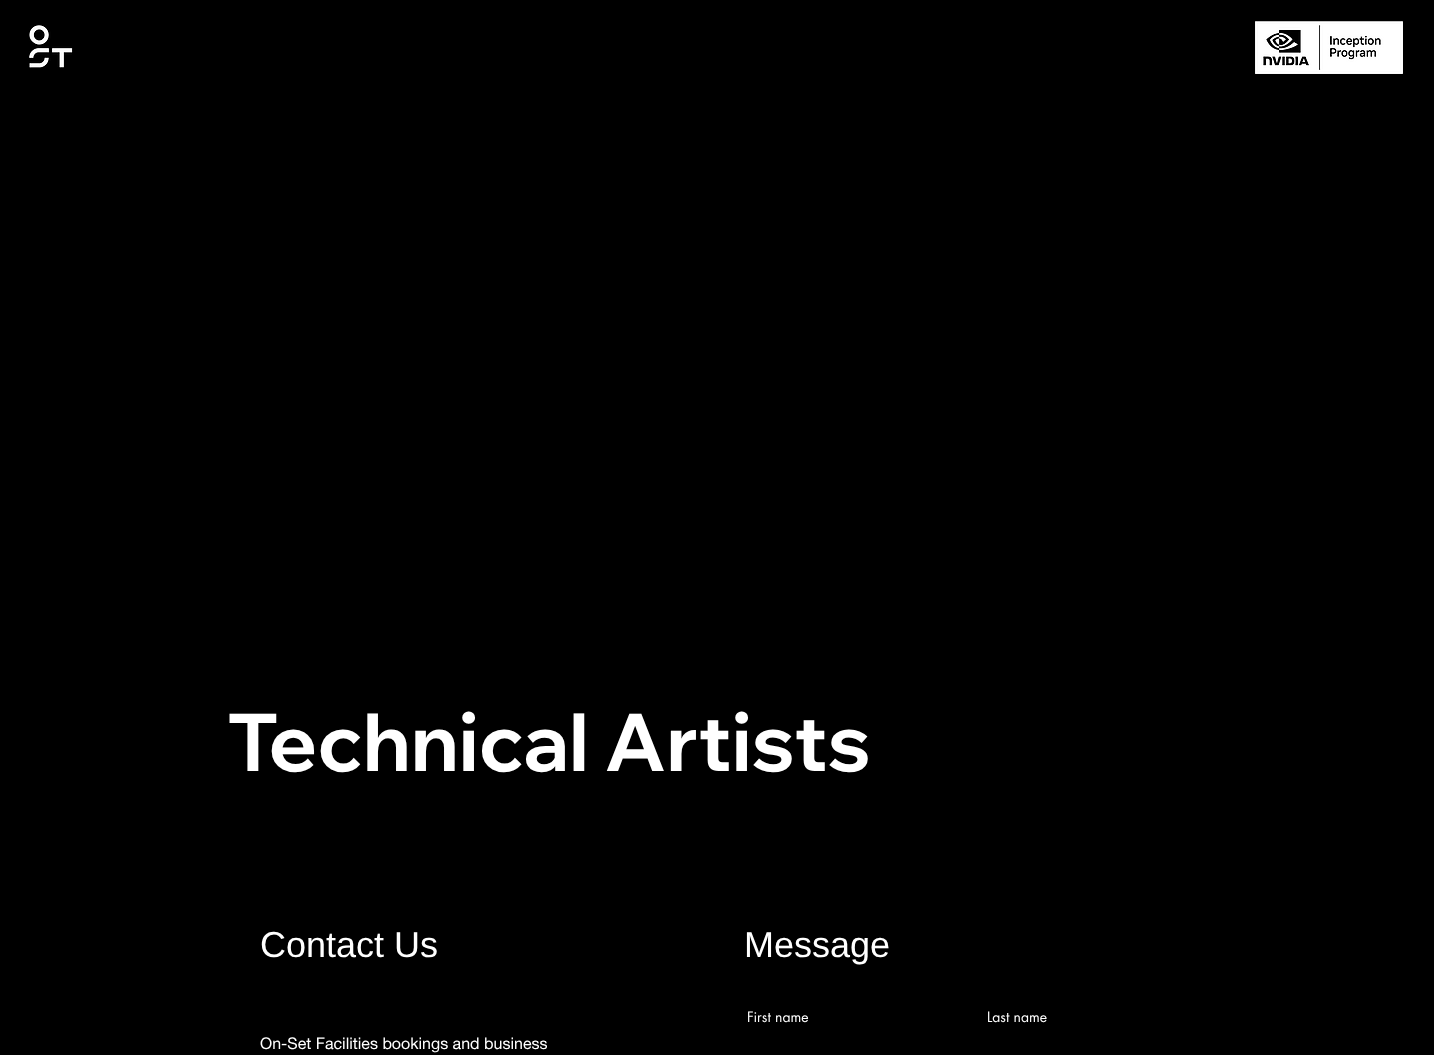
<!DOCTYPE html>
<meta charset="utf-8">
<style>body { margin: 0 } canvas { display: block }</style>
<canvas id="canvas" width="1434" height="1055"></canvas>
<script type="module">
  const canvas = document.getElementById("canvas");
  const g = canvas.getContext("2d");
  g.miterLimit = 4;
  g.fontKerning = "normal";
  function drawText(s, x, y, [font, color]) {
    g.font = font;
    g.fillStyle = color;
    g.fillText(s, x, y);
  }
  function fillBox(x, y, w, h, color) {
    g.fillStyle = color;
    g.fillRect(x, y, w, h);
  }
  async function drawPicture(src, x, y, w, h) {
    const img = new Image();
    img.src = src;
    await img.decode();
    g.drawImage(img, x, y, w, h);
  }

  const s1 = ["bold 80px Wix Madefor Display", "#FFFFFF"];
  const s2 = ["36px Liberation Sans", "#FFFFFF"];
  const s3 = ["16px helvetica neue", "#FFFFFF"];
  const s4 = ["14px futura", "#FFFFFF"];

  fillBox(0, 0, 1434, 1055, "#000000");
  await drawPicture("pic1.png", 29, 25, 44, 43);
  await drawPicture("pic2.png", 1255, 21, 148, 53);
  drawText("Technical Artists", 227, 771, s1);
  drawText("Contact Us", 260, 957, s2);
  drawText("On-Set Facilities bookings and business", 260, 1049, s3);
  drawText("Message", 744, 957, s2);
  drawText("First name", 747, 1022, s4);
  drawText("Last name", 987, 1022, s4);
</script>
